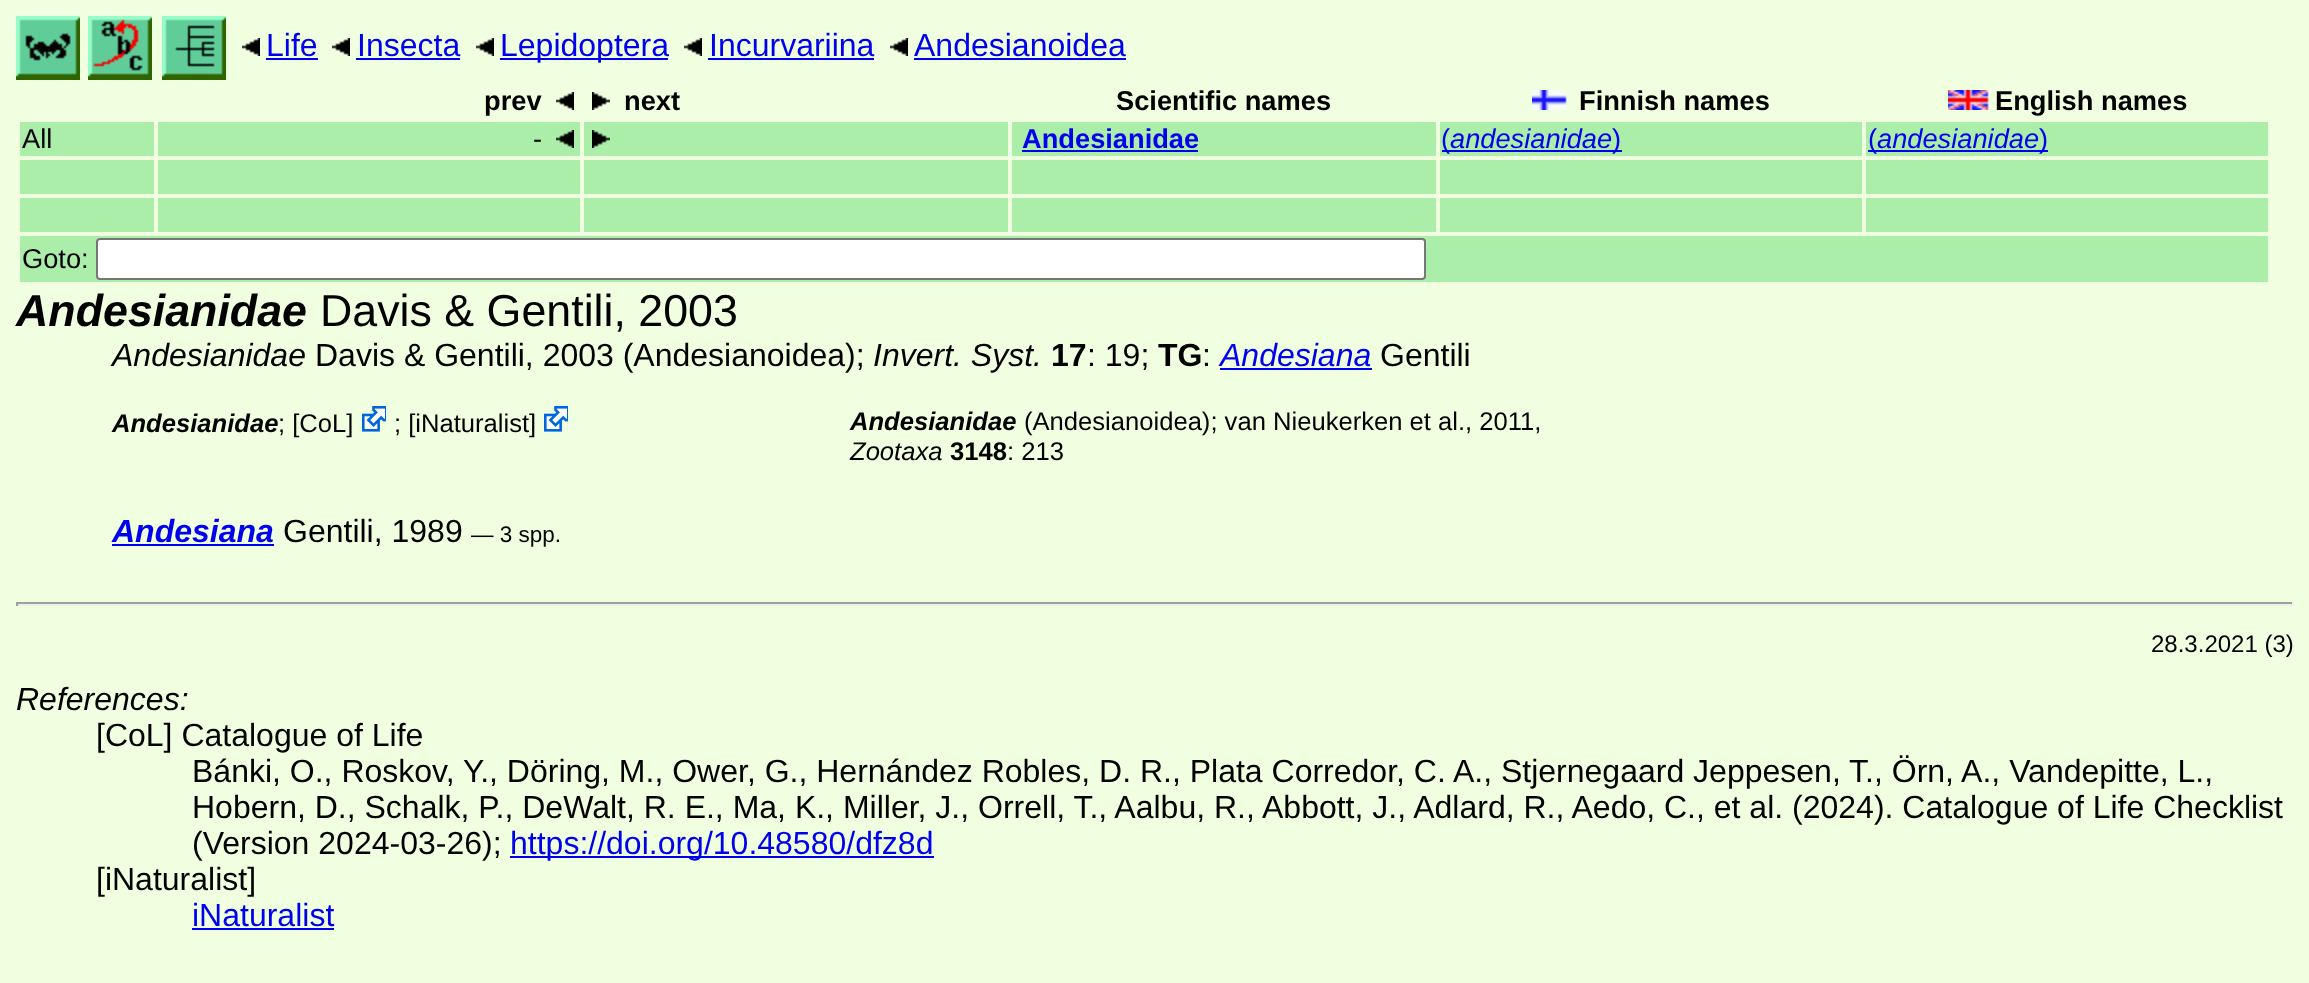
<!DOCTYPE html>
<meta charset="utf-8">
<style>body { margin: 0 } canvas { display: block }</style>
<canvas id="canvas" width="2309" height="983"></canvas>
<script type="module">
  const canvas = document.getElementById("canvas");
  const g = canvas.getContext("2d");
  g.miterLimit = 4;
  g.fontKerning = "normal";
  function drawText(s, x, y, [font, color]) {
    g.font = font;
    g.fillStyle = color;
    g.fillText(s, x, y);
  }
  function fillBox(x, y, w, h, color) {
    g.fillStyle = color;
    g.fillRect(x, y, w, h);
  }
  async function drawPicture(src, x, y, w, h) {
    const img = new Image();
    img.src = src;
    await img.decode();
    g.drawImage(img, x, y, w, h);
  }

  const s1 = ["32px Liberation Sans", "#0000EE"];
  const s2 = ["bold 27.25px Liberation Sans", "#000000"];
  const s3 = ["27.25px Liberation Sans", "#000000"];
  const s4 = ["bold 27.25px Liberation Sans", "#0000EE"];
  const s5 = ["27.25px Liberation Sans", "#0000EE"];
  const s6 = ["italic 27.25px Liberation Sans", "#0000EE"];
  const s7 = ["italic bold 44.75px Liberation Sans", "#000000"];
  const s8 = ["44.75px Liberation Sans", "#000000"];
  const s9 = ["italic 32px Liberation Sans", "#000000"];
  const s10 = ["32px Liberation Sans", "#000000"];
  const s11 = ["bold 32px Liberation Sans", "#000000"];
  const s12 = ["italic 32px Liberation Sans", "#0000EE"];
  const s13 = ["italic bold 25.6px Liberation Sans", "#000000"];
  const s14 = ["25.6px Liberation Sans", "#000000"];
  const s15 = ["italic 25.6px Liberation Sans", "#000000"];
  const s16 = ["bold 25.6px Liberation Sans", "#000000"];
  const s17 = ["italic bold 32px Liberation Sans", "#0000EE"];
  const s18 = ["22.5px Liberation Sans", "#000000"];
  const s19 = ["24px Liberation Sans", "#000000"];

  fillBox(0, 0, 2309, 983, "#F0FFE0");
  await drawPicture("pic1.png", 16, 16, 64, 64);
  await drawPicture("pic2.png", 88, 16, 64, 64);
  await drawPicture("pic3.png", 162, 16, 64, 64);
  await drawPicture("pic4.png", 242, 38, 18, 18);
  drawText("Life", 266, 56, s1);
  fillBox(266, 58, 52, 2, "#0000EE");
  await drawPicture("pic4.png", 332, 38, 18, 18);
  drawText("Insecta", 357, 56, s1);
  fillBox(356, 58, 104, 2, "#0000EE");
  await drawPicture("pic4.png", 476, 38, 18, 18);
  fillBox(500, 58, 168, 2, "#0000EE");
  drawText("Lepidoptera", 500, 56, s1);
  await drawPicture("pic4.png", 684, 38, 18, 18);
  drawText("Incurvariina", 709, 56, s1);
  fillBox(708, 58, 166, 2, "#0000EE");
  await drawPicture("pic4.png", 890, 38, 18, 18);
  drawText("Andesianoidea", 914, 56, s1);
  fillBox(914, 58, 212, 2, "#0000EE");
  drawText("prev", 484, 110, s2);
  await drawPicture("pic4.png", 556, 92, 18, 18);
  await drawPicture("pic5.png", 592, 92, 18, 18);
  drawText("next", 624, 110, s2);
  drawText("Scientific names", 1116, 110, s2);
  await drawPicture("pic6.png", 1532, 90, 35, 20);
  drawText("Finnish names", 1579, 110, s2);
  await drawPicture("pic7.png", 1948, 90, 41, 20);
  drawText("English names", 1995, 110, s2);
  fillBox(20, 122, 134, 34, "#AAEEAA");
  drawText("All", 22, 148, s3);
  fillBox(158, 122, 422, 34, "#AAEEAA");
  drawText("-", 533, 148, s3);
  await drawPicture("pic8.png", 556, 130, 18, 18);
  fillBox(584, 122, 424, 34, "#AAEEAA");
  await drawPicture("pic9.png", 592, 130, 18, 18);
  fillBox(1012, 122, 424, 34, "#AAEEAA");
  drawText("Andesianidae", 1022, 148, s4);
  fillBox(1022, 150, 176, 2, "#0000EE");
  fillBox(1440, 122, 422, 34, "#AAEEAA");
  fillBox(1442, 150, 180, 2, "#0000EE");
  drawText("(", 1441, 148, s5);
  drawText("andesianidae", 1450, 148, s6);
  drawText(")", 1612, 148, s5);
  fillBox(1866, 122, 402, 34, "#AAEEAA");
  fillBox(1868, 150, 180, 2, "#0000EE");
  drawText("(", 1868, 148, s5);
  drawText("andesianidae", 1877, 148, s6);
  drawText(")", 2039, 148, s5);
  fillBox(20, 160, 134, 34, "#AAEEAA");
  fillBox(158, 160, 422, 34, "#AAEEAA");
  fillBox(584, 160, 424, 34, "#AAEEAA");
  fillBox(1012, 160, 424, 34, "#AAEEAA");
  fillBox(1440, 160, 422, 34, "#AAEEAA");
  fillBox(1866, 160, 402, 34, "#AAEEAA");
  fillBox(20, 198, 134, 34, "#AAEEAA");
  fillBox(158, 198, 422, 34, "#AAEEAA");
  fillBox(584, 198, 424, 34, "#AAEEAA");
  fillBox(1012, 198, 424, 34, "#AAEEAA");
  fillBox(1440, 198, 422, 34, "#AAEEAA");
  fillBox(1866, 198, 402, 34, "#AAEEAA");
  fillBox(20, 236, 2248, 46, "#AAEEAA");
  drawText("Goto:", 22, 268, s3);
  g.fillStyle = "#FFFFFF";
  g.beginPath();
  g.roundRect(97, 239, 1328, 40, 3);
  g.fill();
  g.strokeStyle = "#767676";
  g.lineWidth = 2;
  g.stroke();
  drawText("Andesianidae", 16, 326, s7);
  drawText("Davis & Gentili, 2003", 320, 326, s8);
  drawText("Andesianidae", 112, 366, s9);
  drawText("Davis & Gentili, 2003 (Andesianoidea);", 315, 366, s10);
  drawText("Invert. Syst.", 873, 366, s9);
  drawText("17", 1051, 366, s11);
  drawText(": 19;", 1087, 366, s10);
  drawText("TG", 1158, 366, s11);
  drawText(":", 1202, 366, s10);
  drawText("Andesiana", 1220, 366, s12);
  fillBox(1220, 368, 152, 2, "#0000EE");
  drawText("Gentili", 1380, 366, s10);
  drawText("Andesianidae", 112, 432, s13);
  drawText("; [CoL]", 278, 432, s14);
  await drawPicture("pic10.png", 362, 406, 24, 26);
  drawText("; [iNaturalist]", 394, 432, s14);
  await drawPicture("pic10.png", 544, 406, 24, 26);
  drawText("Andesianidae", 850, 430, s13);
  drawText("(Andesianoidea); van Nieukerken et al., 2011,", 1024, 430, s14);
  drawText("Zootaxa", 850, 460, s15);
  drawText("3148", 950, 460, s16);
  drawText(": 213", 1007, 460, s14);
  drawText("Andesiana", 112, 542, s17);
  fillBox(112, 544, 162, 2, "#0000EE");
  drawText("Gentili, 1989", 283, 542, s10);
  drawText("— 3 spp.", 471, 542, s18);
  fillBox(16, 602, 2278, 2, "#9F9F9F");
  fillBox(2292, 602, 2, 4, "#EEEEEE");
  fillBox(16, 604, 2278, 2, "#EEEEEE");
  fillBox(16, 602, 2, 4, "#9F9F9F");
  drawText("28.3.2021 (3)", 2151, 652, s19);
  drawText("References:", 16, 710, s9);
  drawText("[CoL] Catalogue of Life", 96, 746, s10);
  drawText("Bánki, O., Roskov, Y., Döring, M., Ower, G., Hernández Robles, D. R., Plata Corredor, C. A., Stjernegaard Jeppesen, T., Örn, A., Vandepitte, L.,", 192, 782, s10);
  drawText("Hobern, D., Schalk, P., DeWalt, R. E., Ma, K., Miller, J., Orrell, T., Aalbu, R., Abbott, J., Adlard, R., Aedo, C., et al. (2024). Catalogue of Life Checklist", 192, 818, s10);
  drawText("(Version 2024-03-26);", 192, 854, s10);
  fillBox(510, 856, 424, 2, "#0000EE");
  drawText("https://doi.org/10.48580/dfz8d", 510, 854, s1);
  drawText("[iNaturalist]", 96, 890, s10);
  drawText("iNaturalist", 192, 926, s1);
  fillBox(192, 928, 142, 2, "#0000EE");
</script>
